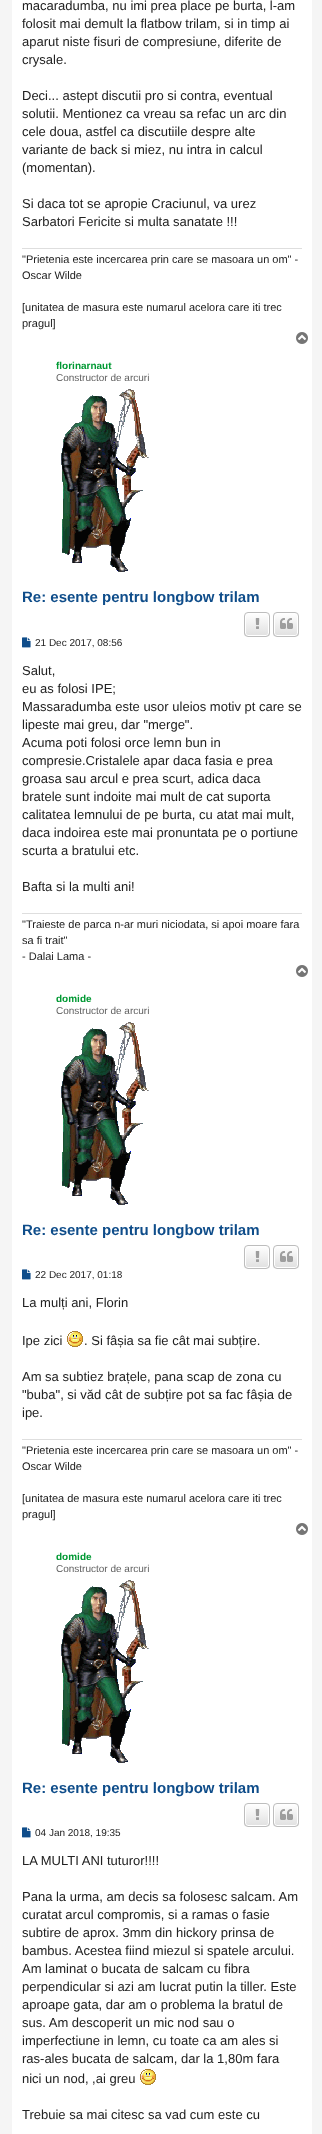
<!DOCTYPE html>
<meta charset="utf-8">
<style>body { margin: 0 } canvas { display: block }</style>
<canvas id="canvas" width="322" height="2134"></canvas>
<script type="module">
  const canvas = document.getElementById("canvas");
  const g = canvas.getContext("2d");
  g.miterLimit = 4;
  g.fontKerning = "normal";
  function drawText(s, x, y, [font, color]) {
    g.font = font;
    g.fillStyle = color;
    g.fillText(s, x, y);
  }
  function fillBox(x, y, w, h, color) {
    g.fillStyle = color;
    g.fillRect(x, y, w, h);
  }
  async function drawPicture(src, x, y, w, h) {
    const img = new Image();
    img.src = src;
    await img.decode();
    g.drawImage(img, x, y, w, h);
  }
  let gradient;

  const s1 = ["13px Liberation Sans", "#212121"];
  const s2 = ["11px Liberation Sans", "#212121"];
  const s3 = ["bold 10px Liberation Sans", "#009933"];
  const s4 = ["10px Liberation Sans", "#616161"];
  const s5 = ["bold 15px Liberation Sans", "#0F4D8A"];
  const s6 = ["10px Liberation Sans", "#212121"];

  fillBox(0, 0, 322, 2134, "#F5F5F5");
  fillBox(12, 0, 300, 2134, "#FFFFFF");
  drawText("macaradumba, nu imi prea place pe burta, l-am", 22, 10, s1);
  drawText("folosit mai demult la flatbow trilam, si in timp ai", 22, 28, s1);
  drawText("aparut niste fisuri de compresiune, diferite de", 22, 46, s1);
  drawText("crysale.", 22, 64, s1);
  drawText("Deci... astept discutii pro si contra, eventual", 22, 100, s1);
  drawText("solutii. Mentionez ca vreau sa refac un arc din", 22, 118, s1);
  drawText("cele doua, astfel ca discutiile despre alte", 22, 136, s1);
  drawText("variante de back si miez, nu intra in calcul", 22, 154, s1);
  drawText("(momentan).", 22, 172, s1);
  drawText("Si daca tot se apropie Craciunul, va urez", 22, 208, s1);
  drawText("Sarbatori Fericite si multa sanatate !!!", 22, 226, s1);
  fillBox(22, 248, 280, 1, "#DEDEDE");
  drawText("\"Prietenia este incercarea prin care se masoara un om\" -", 22, 263, s2);
  drawText("Oscar Wilde", 22, 279, s2);
  drawText("[unitatea de masura este numarul acelora care iti trec", 22, 311, s2);
  drawText("pragul]", 22, 327, s2);
  await drawPicture("pic1.png", 296, 332, 12, 12);
  drawText("florinarnaut", 56, 369, s3);
  drawText("Constructor de arcuri", 56, 381, s4);
  await drawPicture("pic2.png", 61, 389, 88, 183);
  drawText("Re: esente pentru longbow trilam", 22, 602, s5);
  g.save();
  g.beginPath();
  g.roundRect(244, 612, 26, 25, 4);
  g.clip();
  gradient = g.createLinearGradient(257, 613, 257, 636);
  gradient.addColorStop(0, "#FFFFFF");
  gradient.addColorStop(1, "#E0E0E0");
  g.fillStyle = gradient;
  g.fillRect(244, 613, 26, 23);
  g.restore();
  g.beginPath();
  g.roundRect(245.5, 613.5, 23, 22, 2.5);
  g.strokeStyle = "#FFFFFF";
  g.stroke();
  g.beginPath();
  g.roundRect(244.5, 612.5, 25, 24, 3.5);
  g.strokeStyle = "#BDBDBD";
  g.stroke();
  await drawPicture("pic3.png", 255, 618, 5, 11);
  g.save();
  g.beginPath();
  g.roundRect(273, 612, 26, 25, 4);
  g.clip();
  gradient = g.createLinearGradient(286, 613, 286, 636);
  gradient.addColorStop(0, "#FFFFFF");
  gradient.addColorStop(1, "#E0E0E0");
  g.fillStyle = gradient;
  g.fillRect(273, 613, 26, 23);
  g.restore();
  g.beginPath();
  g.roundRect(274.5, 613.5, 23, 22, 2.5);
  g.strokeStyle = "#FFFFFF";
  g.stroke();
  g.beginPath();
  g.roundRect(273.5, 612.5, 25, 24, 3.5);
  g.strokeStyle = "#BDBDBD";
  g.stroke();
  await drawPicture("pic4.png", 280, 618, 13, 11);
  await drawPicture("pic5.png", 22, 637, 9, 11);
  drawText("21 Dec 2017, 08:56", 35, 646, s6);
  drawText("Salut,", 22, 675, s1);
  drawText("eu as folosi IPE;", 22, 693, s1);
  drawText("Massaradumba este usor uleios motiv pt care se", 22, 711, s1);
  drawText("lipeste mai greu, dar \"merge\".", 22, 729, s1);
  drawText("Acuma poti folosi orce lemn bun in", 22, 747, s1);
  drawText("compresie.Cristalele apar daca fasia e prea", 22, 765, s1);
  drawText("groasa sau arcul e prea scurt, adica daca", 22, 783, s1);
  drawText("bratele sunt indoite mai mult de cat suporta", 22, 801, s1);
  drawText("calitatea lemnului de pe burta, cu atat mai mult,", 22, 819, s1);
  drawText("daca indoirea este mai pronuntata pe o portiune", 22, 837, s1);
  drawText("scurta a bratului etc.", 22, 855, s1);
  drawText("Bafta si la multi ani!", 22, 891, s1);
  fillBox(22, 913, 280, 1, "#DEDEDE");
  drawText("\"Traieste de parca n-ar muri niciodata, si apoi moare fara", 22, 928, s2);
  drawText("sa fi trait\"", 22, 944, s2);
  drawText("- Dalai Lama -", 22, 960, s2);
  await drawPicture("pic1.png", 296, 965, 12, 12);
  drawText("domide", 56, 1002, s3);
  drawText("Constructor de arcuri", 56, 1014, s4);
  await drawPicture("pic2.png", 61, 1022, 88, 183);
  drawText("Re: esente pentru longbow trilam", 22, 1235, s5);
  g.save();
  g.beginPath();
  g.roundRect(244, 1245, 26, 24, 4);
  g.clip();
  gradient = g.createLinearGradient(257, 1246, 257, 1268);
  gradient.addColorStop(0, "#FFFFFF");
  gradient.addColorStop(1, "#E0E0E0");
  g.fillStyle = gradient;
  g.fillRect(244, 1246, 26, 22);
  g.restore();
  g.beginPath();
  g.roundRect(245.5, 1246.5, 23, 21, 2.5);
  g.strokeStyle = "#FFFFFF";
  g.stroke();
  g.beginPath();
  g.roundRect(244.5, 1245.5, 25, 23, 3.5);
  g.strokeStyle = "#BDBDBD";
  g.stroke();
  await drawPicture("pic6.png", 255, 1251, 5, 11);
  g.save();
  g.beginPath();
  g.roundRect(273, 1245, 26, 24, 4);
  g.clip();
  gradient = g.createLinearGradient(286, 1246, 286, 1268);
  gradient.addColorStop(0, "#FFFFFF");
  gradient.addColorStop(1, "#E0E0E0");
  g.fillStyle = gradient;
  g.fillRect(273, 1246, 26, 22);
  g.restore();
  g.beginPath();
  g.roundRect(274.5, 1246.5, 23, 21, 2.5);
  g.strokeStyle = "#FFFFFF";
  g.stroke();
  g.beginPath();
  g.roundRect(273.5, 1245.5, 25, 23, 3.5);
  g.strokeStyle = "#BDBDBD";
  g.stroke();
  await drawPicture("pic7.png", 280, 1251, 13, 11);
  await drawPicture("pic5.png", 22, 1269, 9, 11);
  drawText("22 Dec 2017, 01:18", 35, 1278, s6);
  drawText("La mulți ani, Florin", 22, 1307, s1);
  drawText("Ipe zici", 22, 1345, s1);
  await drawPicture("pic8.png", 67, 1331, 16, 16);
  drawText(". Si fâșia sa fie cât mai subțire.", 84, 1345, s1);
  drawText("Am sa subtiez brațele, pana scap de zona cu", 22, 1381, s1);
  drawText("\"buba\", si văd cât de subțire pot sa fac fâșia de", 22, 1399, s1);
  drawText("ipe.", 22, 1417, s1);
  fillBox(22, 1439, 280, 1, "#DEDEDE");
  drawText("\"Prietenia este incercarea prin care se masoara un om\" -", 22, 1454, s2);
  drawText("Oscar Wilde", 22, 1470, s2);
  drawText("[unitatea de masura este numarul acelora care iti trec", 22, 1502, s2);
  drawText("pragul]", 22, 1518, s2);
  await drawPicture("pic1.png", 296, 1523, 12, 12);
  drawText("domide", 56, 1560, s3);
  drawText("Constructor de arcuri", 56, 1572, s4);
  await drawPicture("pic2.png", 61, 1580, 88, 183);
  drawText("Re: esente pentru longbow trilam", 22, 1793, s5);
  g.save();
  g.beginPath();
  g.roundRect(244, 1803, 26, 24, 4);
  g.clip();
  gradient = g.createLinearGradient(257, 1804, 257, 1826);
  gradient.addColorStop(0, "#FFFFFF");
  gradient.addColorStop(1, "#E0E0E0");
  g.fillStyle = gradient;
  g.fillRect(244, 1804, 26, 22);
  g.restore();
  g.beginPath();
  g.roundRect(245.5, 1804.5, 23, 21, 2.5);
  g.strokeStyle = "#FFFFFF";
  g.stroke();
  g.beginPath();
  g.roundRect(244.5, 1803.5, 25, 23, 3.5);
  g.strokeStyle = "#BDBDBD";
  g.stroke();
  await drawPicture("pic6.png", 255, 1809, 5, 11);
  g.save();
  g.beginPath();
  g.roundRect(273, 1803, 26, 24, 4);
  g.clip();
  gradient = g.createLinearGradient(286, 1804, 286, 1826);
  gradient.addColorStop(0, "#FFFFFF");
  gradient.addColorStop(1, "#E0E0E0");
  g.fillStyle = gradient;
  g.fillRect(273, 1804, 26, 22);
  g.restore();
  g.beginPath();
  g.roundRect(274.5, 1804.5, 23, 21, 2.5);
  g.strokeStyle = "#FFFFFF";
  g.stroke();
  g.beginPath();
  g.roundRect(273.5, 1803.5, 25, 23, 3.5);
  g.strokeStyle = "#BDBDBD";
  g.stroke();
  await drawPicture("pic7.png", 280, 1809, 13, 11);
  await drawPicture("pic5.png", 22, 1827, 9, 11);
  drawText("04 Jan 2018, 19:35", 35, 1836, s6);
  drawText("LA MULTI ANI tuturor!!!!", 22, 1865, s1);
  drawText("Pana la urma, am decis sa folosesc salcam. Am", 22, 1901, s1);
  drawText("curatat arcul compromis, si a ramas o fasie", 22, 1919, s1);
  drawText("subtire de aprox. 3mm din hickory prinsa de", 22, 1937, s1);
  drawText("bambus. Acestea fiind miezul si spatele arcului.", 22, 1955, s1);
  drawText("Am laminat o bucata de salcam cu fibra", 22, 1973, s1);
  drawText("perpendicular si azi am lucrat putin la tiller. Este", 22, 1991, s1);
  drawText("aproape gata, dar am o problema la bratul de", 22, 2009, s1);
  drawText("sus. Am descoperit un mic nod sau o", 22, 2027, s1);
  drawText("imperfectiune in lemn, cu toate ca am ales si", 22, 2045, s1);
  drawText("ras-ales bucata de salcam, dar la 1,80m fara", 22, 2063, s1);
  drawText("nici un nod, ,ai greu", 22, 2083, s1);
  await drawPicture("pic8.png", 140, 2069, 16, 16);
  drawText("Trebuie sa mai citesc sa vad cum este cu", 22, 2119, s1);
</script>
